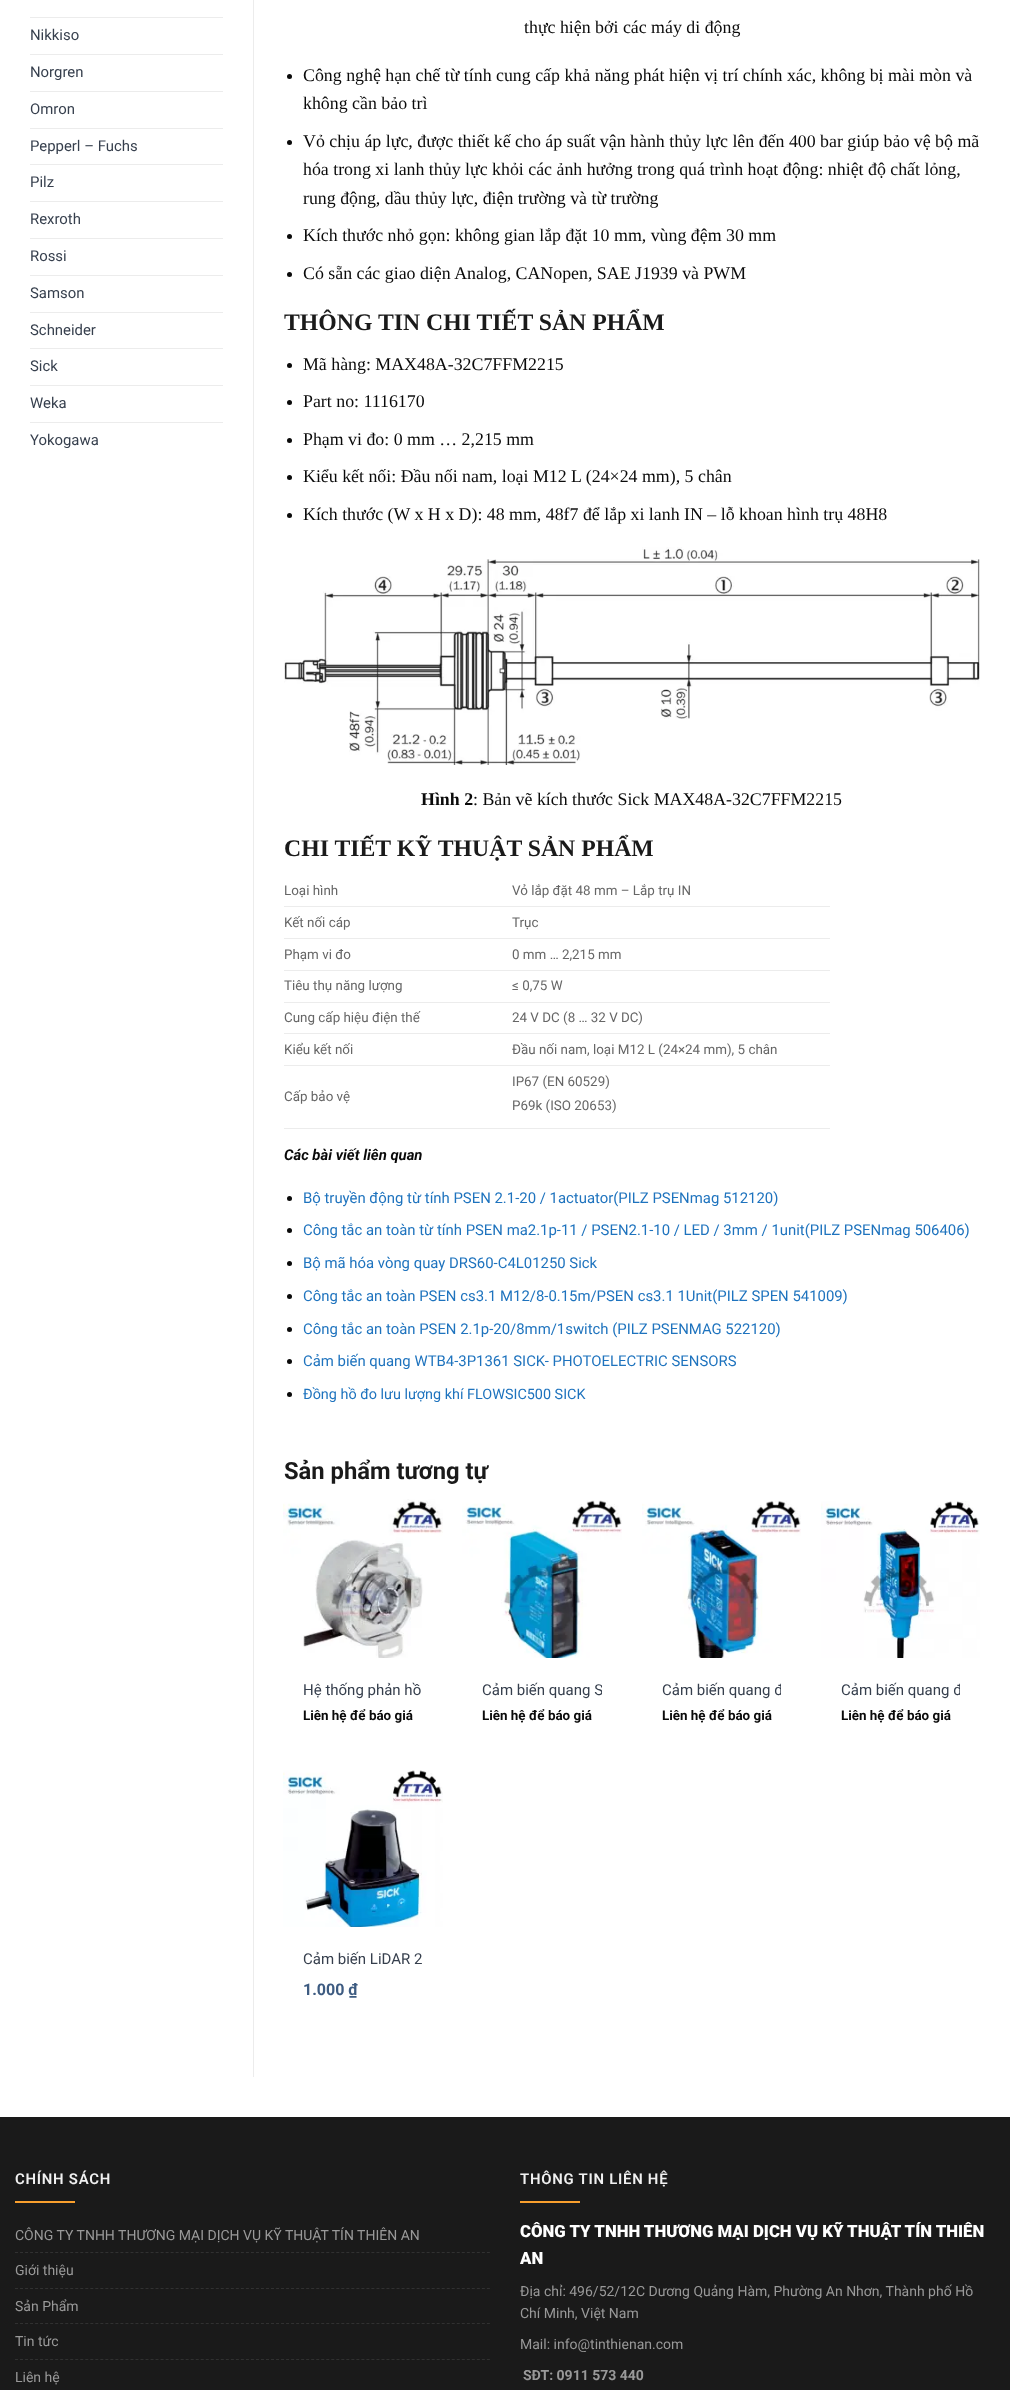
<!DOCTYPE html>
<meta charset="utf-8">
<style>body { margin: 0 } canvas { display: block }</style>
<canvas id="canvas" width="1010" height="2390"></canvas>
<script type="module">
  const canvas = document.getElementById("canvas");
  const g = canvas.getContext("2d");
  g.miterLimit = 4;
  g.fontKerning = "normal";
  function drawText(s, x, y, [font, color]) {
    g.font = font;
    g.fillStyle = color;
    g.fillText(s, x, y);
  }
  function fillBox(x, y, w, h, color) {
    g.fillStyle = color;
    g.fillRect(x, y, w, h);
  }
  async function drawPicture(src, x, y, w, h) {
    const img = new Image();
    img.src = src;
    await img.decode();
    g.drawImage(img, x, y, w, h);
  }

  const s1 = ["14.9px Roboto", "#363F4D"];
  const s2 = ["17.85px Liberation Serif", "#0A0A0A"];
  const s3 = ["bold 23.75px Liberation Serif", "#1A1A1A"];
  const s4 = ["bold 17.85px Liberation Serif", "#0A0A0A"];
  const s5 = ["13.4px Roboto", "#666666"];
  const s6 = ["italic bold 14.9px Roboto", "#0A0A0A"];
  const s7 = ["14.9px Roboto", "#1E73BE"];
  const s8 = ["14.4px Roboto", "#1E73BE"];
  const s9 = ["bold 23.75px Roboto", "#1A1A1A"];
  const s10 = ["15px Roboto", "#363F4D"];
  const s11 = ["bold 13.4px Roboto", "#0A0A0A"];
  const s12 = ["bold 16px Roboto", "#3D5B81"];
  const s13 = ["600 14.9px Roboto", "#F1F1F1"];
  const s14 = ["14px Roboto", "#999999"];
  const s15 = ["900 16.75px Roboto", "#FFFFFF"];
  const s16 = ["bold 14px Roboto", "#999999"];

  fillBox(0, 0, 1010, 2390, "#FFFFFF");
  fillBox(30, 17, 193, 1, "#ECECEC");
  drawText("Nikkiso", 30, 40, s1);
  fillBox(30, 54, 193, 1, "#ECECEC");
  drawText("Norgren", 30, 77, s1);
  fillBox(30, 91, 193, 1, "#ECECEC");
  drawText("Omron", 30, 114, s1);
  fillBox(30, 128, 193, 1, "#ECECEC");
  drawText("Pepperl – Fuchs", 30, 151, s1);
  fillBox(30, 164, 193, 1, "#ECECEC");
  drawText("Pilz", 30, 187, s1);
  fillBox(30, 201, 193, 1, "#ECECEC");
  drawText("Rexroth", 30, 224, s1);
  fillBox(30, 238, 193, 1, "#ECECEC");
  drawText("Rossi", 30, 261, s1);
  fillBox(30, 275, 193, 1, "#ECECEC");
  drawText("Samson", 30, 298, s1);
  fillBox(30, 312, 193, 1, "#ECECEC");
  drawText("Schneider", 30, 335, s1);
  fillBox(30, 348, 193, 1, "#ECECEC");
  drawText("Sick", 30, 371, s1);
  fillBox(30, 385, 193, 1, "#ECECEC");
  drawText("Weka", 30, 408, s1);
  fillBox(30, 422, 193, 1, "#ECECEC");
  drawText("Yokogawa", 30, 445, s1);
  fillBox(253, 0, 1, 2077, "#ECECEC");
  drawText("thực hiện bởi các máy di động", 524, 33, s2);
  g.beginPath();
  g.arc(289.5, 76.5, 2.5, 0, Math.PI * 2);
  g.fill();
  drawText("Công nghệ hạn chế từ tính cung cấp khả năng phát hiện vị trí chính xác, không bị mài mòn và", 303, 81, s2);
  drawText("không cần bảo trì", 303, 109, s2);
  g.beginPath();
  g.arc(289.5, 142.5, 2.5, 0, Math.PI * 2);
  g.fill();
  drawText("Vỏ chịu áp lực, được thiết kế cho áp suất vận hành thủy lực lên đến 400 bar giúp bảo vệ bộ mã", 303, 147, s2);
  drawText("hóa trong xi lanh thủy lực khỏi các ảnh hưởng trong quá trình hoạt động: nhiệt độ chất lỏng,", 303, 175, s2);
  drawText("rung động, dầu thủy lực, điện trường và từ trường", 303, 204, s2);
  g.beginPath();
  g.arc(289.5, 236.5, 2.5, 0, Math.PI * 2);
  g.fill();
  drawText("Kích thước nhỏ gọn: không gian lắp đặt 10 mm, vùng đệm 30 mm", 303, 241, s2);
  g.beginPath();
  g.arc(289.5, 274.5, 2.5, 0, Math.PI * 2);
  g.fill();
  drawText("Có sẵn các giao diện Analog, CANopen, SAE J1939 và PWM", 303, 279, s2);
  drawText("THÔNG TIN CHI TIẾT SẢN PHẨM", 284, 330, s3);
  g.fillStyle = "#0A0A0A";
  g.beginPath();
  g.arc(289.5, 365.5, 2.5, 0, Math.PI * 2);
  g.fill();
  drawText("Mã hàng: MAX48A-32C7FFM2215", 303, 370, s2);
  g.beginPath();
  g.arc(289.5, 402.5, 2.5, 0, Math.PI * 2);
  g.fill();
  drawText("Part no: 1116170", 303, 407, s2);
  g.beginPath();
  g.arc(289.5, 440.5, 2.5, 0, Math.PI * 2);
  g.fill();
  drawText("Phạm vi đo: 0 mm … 2,215 mm", 303, 445, s2);
  g.beginPath();
  g.arc(289.5, 477.5, 2.5, 0, Math.PI * 2);
  g.fill();
  drawText("Kiểu kết nối: Đầu nối nam, loại M12 L (24×24 mm), 5 chân", 303, 482, s2);
  g.beginPath();
  g.arc(289.5, 515.5, 2.5, 0, Math.PI * 2);
  g.fill();
  drawText("Kích thước (W x H x D): 48 mm, 48f7 để lắp xi lanh IN – lỗ khoan hình trụ 48H8", 303, 520, s2);
  await drawPicture("pic1.png", 284, 547, 696, 218);
  drawText("Hình 2", 421, 805, s4);
  drawText(": Bản vẽ kích thước Sick MAX48A-32C7FFM2215", 473, 805, s2);
  drawText("CHI TIẾT KỸ THUẬT SẢN PHẨM", 284, 856, s3);
  fillBox(284, 906, 546, 1, "#ECECEC");
  drawText("Loại hình", 284, 895, s5);
  drawText("Vỏ lắp đặt 48 mm – Lắp trụ IN", 512, 895, s5);
  fillBox(284, 938, 546, 1, "#ECECEC");
  drawText("Kết nối cáp", 284, 927, s5);
  drawText("Trục", 512, 927, s5);
  fillBox(284, 970, 546, 1, "#ECECEC");
  drawText("Phạm vi đo", 284, 959, s5);
  drawText("0 mm … 2,215 mm", 512, 959, s5);
  fillBox(284, 1002, 546, 1, "#ECECEC");
  drawText("Tiêu thụ năng lượng", 284, 990, s5);
  drawText("≤ 0,75 W", 512, 990, s5);
  fillBox(284, 1033, 546, 1, "#ECECEC");
  drawText("Cung cấp hiệu điện thế", 284, 1022, s5);
  drawText("24 V DC (8 … 32 V DC)", 512, 1022, s5);
  fillBox(284, 1065, 546, 1, "#ECECEC");
  drawText("Kiểu kết nối", 284, 1054, s5);
  drawText("Đầu nối nam, loại M12 L (24×24 mm), 5 chân", 512, 1054, s5);
  fillBox(284, 1128, 546, 1, "#ECECEC");
  drawText("Cấp bảo vệ", 284, 1101, s5);
  drawText("IP67 (EN 60529)", 512, 1086, s5);
  drawText("P69k (ISO 20653)", 512, 1110, s5);
  drawText("Các bài viết liên quan", 284, 1160, s6);
  g.beginPath();
  g.arc(289.5, 1198.5, 2.5, 0, Math.PI * 2);
  g.fill();
  drawText("Bộ truyền động từ tính PSEN 2.1-20 / 1actuator(PILZ PSENmag 512120)", 303, 1203, s7);
  g.fillStyle = "#0A0A0A";
  g.beginPath();
  g.arc(289.5, 1230.5, 2.5, 0, Math.PI * 2);
  g.fill();
  drawText("Công tắc an toàn từ tính PSEN ma2.1p-11 / PSEN2.1-10 / LED / 3mm / 1unit(PILZ PSENmag 506406)", 303, 1235, s7);
  g.fillStyle = "#0A0A0A";
  g.beginPath();
  g.arc(289.5, 1263.5, 2.5, 0, Math.PI * 2);
  g.fill();
  drawText("Bộ mã hóa vòng quay DRS60-C4L01250 Sick", 303, 1268, s7);
  g.fillStyle = "#0A0A0A";
  g.beginPath();
  g.arc(289.5, 1296.5, 2.5, 0, Math.PI * 2);
  g.fill();
  drawText("Công tắc an toàn PSEN cs3.1 M12/8-0.15m/PSEN cs3.1 1Unit(PILZ SPEN 541009)", 303, 1301, s7);
  g.fillStyle = "#0A0A0A";
  g.beginPath();
  g.arc(289.5, 1329.5, 2.5, 0, Math.PI * 2);
  g.fill();
  drawText("Công tắc an toàn PSEN 2.1p-20/8mm/1switch (PILZ PSENMAG 522120)", 303, 1334, s7);
  g.fillStyle = "#0A0A0A";
  g.beginPath();
  g.arc(289.5, 1361.5, 2.5, 0, Math.PI * 2);
  g.fill();
  drawText("Cảm biến quang WTB4-3P1361 SICK- PHOTOELECTRIC SENSORS", 303, 1366, s7);
  g.fillStyle = "#0A0A0A";
  g.beginPath();
  g.arc(289.5, 1394.5, 2.5, 0, Math.PI * 2);
  g.fill();
  drawText("Đồng hồ đo lưu lượng khí FLOWSIC500 SICK", 303, 1399, s8);
  drawText("Sản phẩm tương tự", 284, 1479, s9);
  await drawPicture("pic2.png", 283, 1499, 160, 159);
  drawText("Hệ thống phản hồ", 303, 1695, s10);
  drawText("Liên hệ để báo giá", 303, 1720, s11);
  await drawPicture("pic3.png", 462, 1500, 160, 158);
  g.save();
  g.beginPath();
  g.rect(482, 1678, 120, 24);
  g.clip();
  drawText("Cảm biến quang S", 482, 1695, s10);
  g.restore();
  drawText("Liên hệ để báo giá", 482, 1720, s11);
  await drawPicture("pic4.png", 642, 1500, 159, 158);
  g.save();
  g.beginPath();
  g.rect(662, 1678, 119, 24);
  g.clip();
  drawText("Cảm biến quang đ", 662, 1695, s10);
  g.restore();
  drawText("Liên hệ để báo giá", 662, 1720, s11);
  await drawPicture("pic5.png", 821, 1501, 159, 157);
  g.save();
  g.beginPath();
  g.rect(841, 1678, 119, 24);
  g.clip();
  drawText("Cảm biến quang đ", 841, 1695, s10);
  g.restore();
  drawText("Liên hệ để báo giá", 841, 1720, s11);
  await drawPicture("pic6.png", 283, 1770, 160, 157);
  drawText("Cảm biến LiDAR 2", 303, 1964, s10);
  drawText("1.000 ₫", 303, 1995, s12);
  fillBox(0, 2117, 1010, 273, "#1A1A1A");
  g.letterSpacing = "0.75px";
  drawText("CHÍNH SÁCH", 15, 2184, s13);
  fillBox(15, 2201, 60, 2, "#F99F2D");
  g.letterSpacing = "0px";
  drawText("CÔNG TY TNHH THƯƠNG MẠI DỊCH VỤ KỸ THUẬT TÍN THIÊN AN", 15, 2240, s14);
  g.beginPath();
  g.moveTo(15, 2252.5);
  g.lineTo(490, 2252.5);
  g.strokeStyle = "#313131";
  g.setLineDash([3, 2.02]);
  g.stroke();
  drawText("Giới thiệu", 15, 2275, s14);
  g.beginPath();
  g.moveTo(15, 2288.5);
  g.lineTo(490, 2288.5);
  g.stroke();
  drawText("Sản Phẩm", 15, 2311, s14);
  g.beginPath();
  g.moveTo(15, 2323.5);
  g.lineTo(490, 2323.5);
  g.stroke();
  drawText("Tin tức", 15, 2346, s14);
  g.beginPath();
  g.moveTo(15, 2359.5);
  g.lineTo(490, 2359.5);
  g.stroke();
  drawText("Liên hệ", 15, 2382, s14);
  g.letterSpacing = "0.75px";
  drawText("THÔNG TIN LIÊN HỆ", 520, 2184, s13);
  fillBox(520, 2201, 60, 2, "#F99F2D");
  g.letterSpacing = "0px";
  drawText("CÔNG TY TNHH THƯƠNG MẠI DỊCH VỤ KỸ THUẬT TÍN THIÊN", 520, 2237, s15);
  drawText("AN", 520, 2264, s15);
  drawText("Địa chỉ: 496/52/12C Dương Quảng Hàm, Phường An Nhơn, Thành phố Hồ", 520, 2296, s14);
  drawText("Chí Minh, Việt Nam", 520, 2318, s14);
  drawText("Mail: info@tinthienan.com", 520, 2349, s14);
  drawText("SĐT: 0911 573 440", 523, 2380, s16);
</script>
